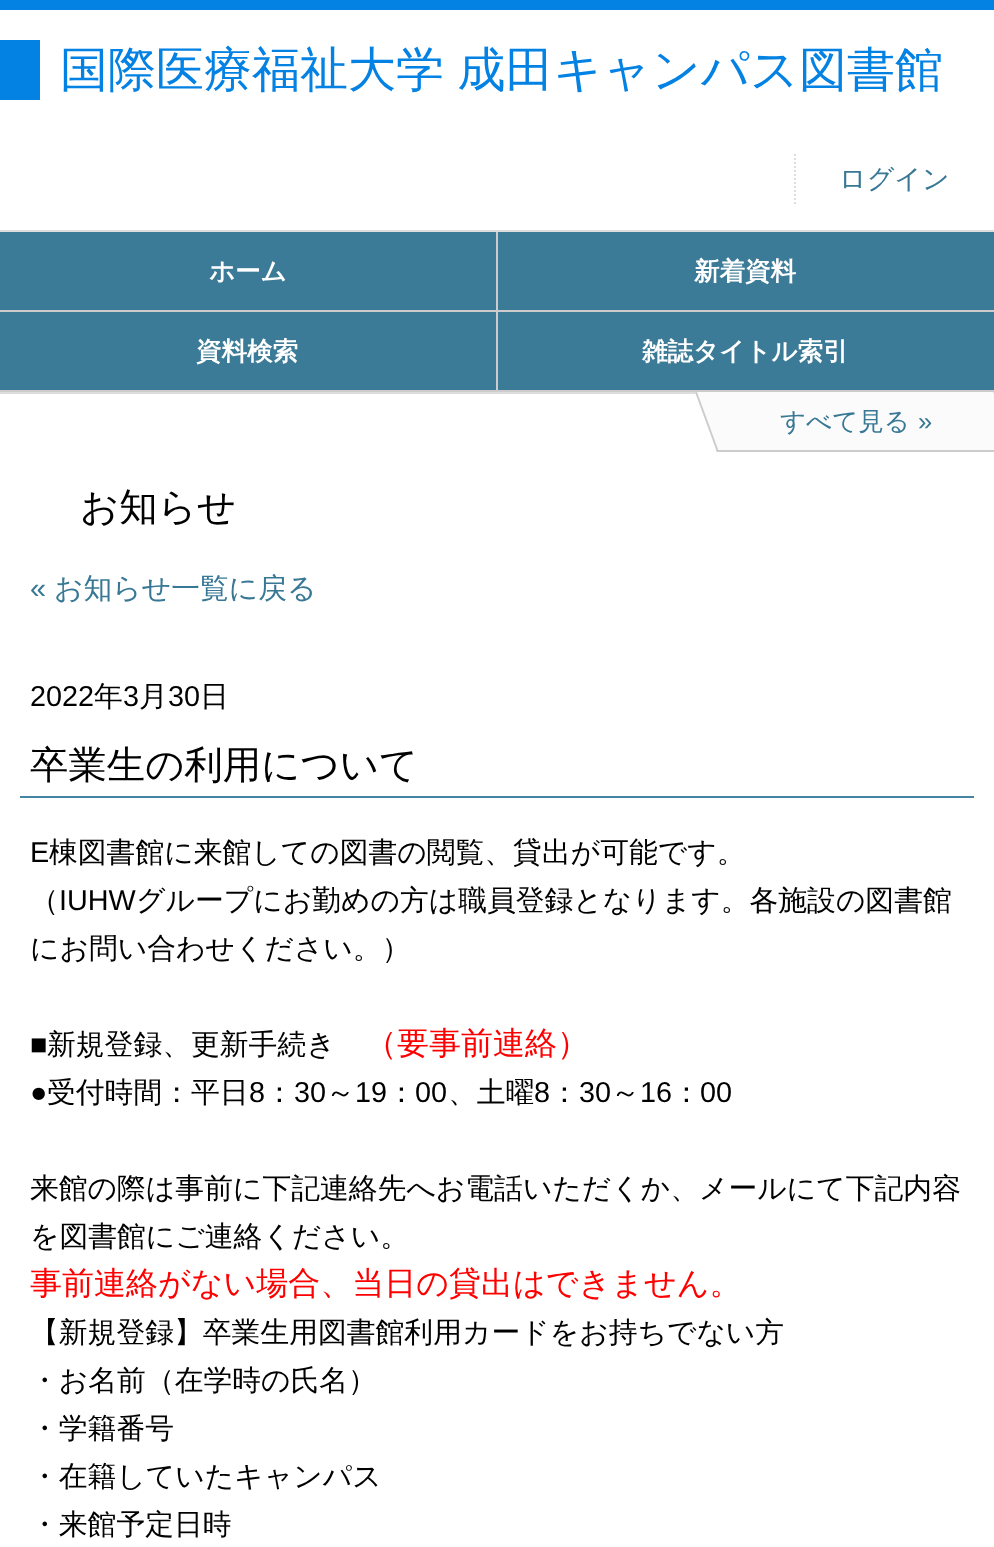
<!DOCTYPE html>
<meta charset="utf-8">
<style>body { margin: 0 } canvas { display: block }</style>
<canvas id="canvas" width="994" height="1547"></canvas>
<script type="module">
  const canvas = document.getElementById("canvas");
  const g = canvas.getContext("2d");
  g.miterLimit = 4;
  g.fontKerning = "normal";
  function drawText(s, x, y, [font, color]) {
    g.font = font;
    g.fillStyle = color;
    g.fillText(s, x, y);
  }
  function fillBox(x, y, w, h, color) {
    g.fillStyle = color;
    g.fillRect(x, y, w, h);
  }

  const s1 = ["500 48px WenQuanYi Zen Hei", "#0482E3"];
  const s2 = ["500 27px WenQuanYi Zen Hei", "#387895"];
  const s3 = ["bold 25.5px WenQuanYi Zen Hei", "#FFFFFF"];
  const s4 = ["500 25.5px WenQuanYi Zen Hei", "#387895"];
  const s5 = ["25.5px Liberation Sans", "#387895"];
  const s6 = ["500 38.4px WenQuanYi Zen Hei", "#000000"];
  const s7 = ["28.8px Liberation Sans", "#387895"];
  const s8 = ["500 28.8px WenQuanYi Zen Hei", "#387895"];
  const s9 = ["28.8px Liberation Sans", "#000000"];
  const s10 = ["500 28.8px WenQuanYi Zen Hei", "#000000"];
  const s11 = ["500 32px WenQuanYi Zen Hei", "#FF0000"];

  fillBox(0, 0, 994, 1547, "#FFFFFF");
  fillBox(0, 0, 994, 10, "#0482E3");
  fillBox(0, 40, 40, 60, "#0482E3");
  g.wordSpacing = "-1px";
  drawText("国際医療福祉大学 成田キャンパス図書館", 60, 86, s1);
  g.beginPath();
  g.moveTo(795, 154);
  g.lineTo(795, 206);
  g.strokeStyle = "#DDDDDD";
  g.lineWidth = 2;
  g.setLineDash([2, 2]);
  g.stroke();
  g.wordSpacing = "0px";
  drawText("ログイン", 839, 188, s2);
  fillBox(0, 230, 994, 2, "#DDDDDD");
  fillBox(0, 392, 994, 2, "#DDDDDD");
  fillBox(496, 232, 2, 160, "#CCCCCC");
  fillBox(0, 310, 994, 2, "#CCCCCC");
  fillBox(0, 232, 496, 78, "#3C7B97");
  drawText("ホーム", 209, 280, s3);
  fillBox(498, 232, 496, 78, "#3C7B97");
  drawText("新着資料", 694, 280, s3);
  fillBox(0, 390, 994, 2, "#CCCCCC");
  fillBox(0, 312, 496, 78, "#3C7B97");
  drawText("資料検索", 196, 360, s3);
  fillBox(498, 312, 496, 78, "#3C7B97");
  drawText("雑誌タイトル索引", 642, 360, s3);
  g.fillStyle = "#FBFBFB";
  g.beginPath();
  g.moveTo(695, 392);
  g.lineTo(993, 392);
  g.lineTo(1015, 452);
  g.lineTo(717, 452);
  g.closePath();
  g.fill();
  g.fillStyle = "#CCCCCC";
  g.beginPath();
  g.moveTo(716, 450);
  g.lineTo(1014, 450);
  g.lineTo(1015, 452);
  g.lineTo(717, 452);
  g.closePath();
  g.fill();
  g.beginPath();
  g.moveTo(695, 392);
  g.lineTo(697, 392);
  g.lineTo(719, 452);
  g.lineTo(717, 452);
  g.closePath();
  g.fill();
  drawText("すべて見る", 780, 430, s4);
  drawText("»", 918, 430, s5);
  drawText("お知らせ", 80, 520, s6);
  drawText("«", 30, 598, s7);
  drawText("お知らせ一覧に戻る", 54, 598, s8);
  drawText("2022", 30, 706, s9);
  drawText("年", 94, 706, s10);
  drawText("3", 123, 706, s9);
  drawText("月", 139, 706, s10);
  drawText("30", 168, 706, s9);
  drawText("日", 200, 706, s10);
  fillBox(20, 796, 954, 2, "#4584A2");
  drawText("卒業生の利用について", 30, 778, s6);
  drawText("E", 30, 862, s9);
  drawText("棟図書館に来館しての図書の閲覧、貸出が可能です。", 49, 862, s10);
  drawText("（", 30, 910, s10);
  drawText("IUHW", 59, 910, s9);
  drawText("グループにお勤めの方は職員登録となります。各施設の図書館", 136, 910, s10);
  drawText("にお問い合わせください。）", 30, 958, s10);
  drawText("■", 30, 1054, s9);
  drawText("新規登録、更新手続き", 47, 1054, s10);
  drawText("（要事前連絡）", 365, 1054, s11);
  drawText("●", 30, 1102, s9);
  drawText("受付時間：平日", 47, 1102, s10);
  drawText("8", 249, 1102, s9);
  drawText("：", 265, 1102, s10);
  drawText("30", 294, 1102, s9);
  drawText("～", 326, 1102, s10);
  drawText("19", 355, 1102, s9);
  drawText("：", 387, 1102, s10);
  drawText("00", 415, 1102, s9);
  drawText("、土曜", 448, 1102, s10);
  drawText("8", 534, 1102, s9);
  drawText("：", 550, 1102, s10);
  drawText("30", 579, 1102, s9);
  drawText("～", 611, 1102, s10);
  drawText("16", 640, 1102, s9);
  drawText("：", 672, 1102, s10);
  drawText("00", 700, 1102, s9);
  drawText("来館の際は事前に下記連絡先へお電話いただくか、メールにて下記内容", 30, 1198, s10);
  drawText("を図書館にご連絡ください。", 30, 1246, s10);
  drawText("事前連絡がない場合、当日の貸出はできません。", 30, 1294, s11);
  drawText("【新規登録】卒業生用図書館利用カードをお持ちでない方", 30, 1342, s10);
  drawText("・お名前（在学時の氏名）", 30, 1390, s10);
  drawText("・学籍番号", 30, 1438, s10);
  drawText("・在籍していたキャンパス", 30, 1486, s10);
  drawText("・来館予定日時", 30, 1534, s10);
</script>
